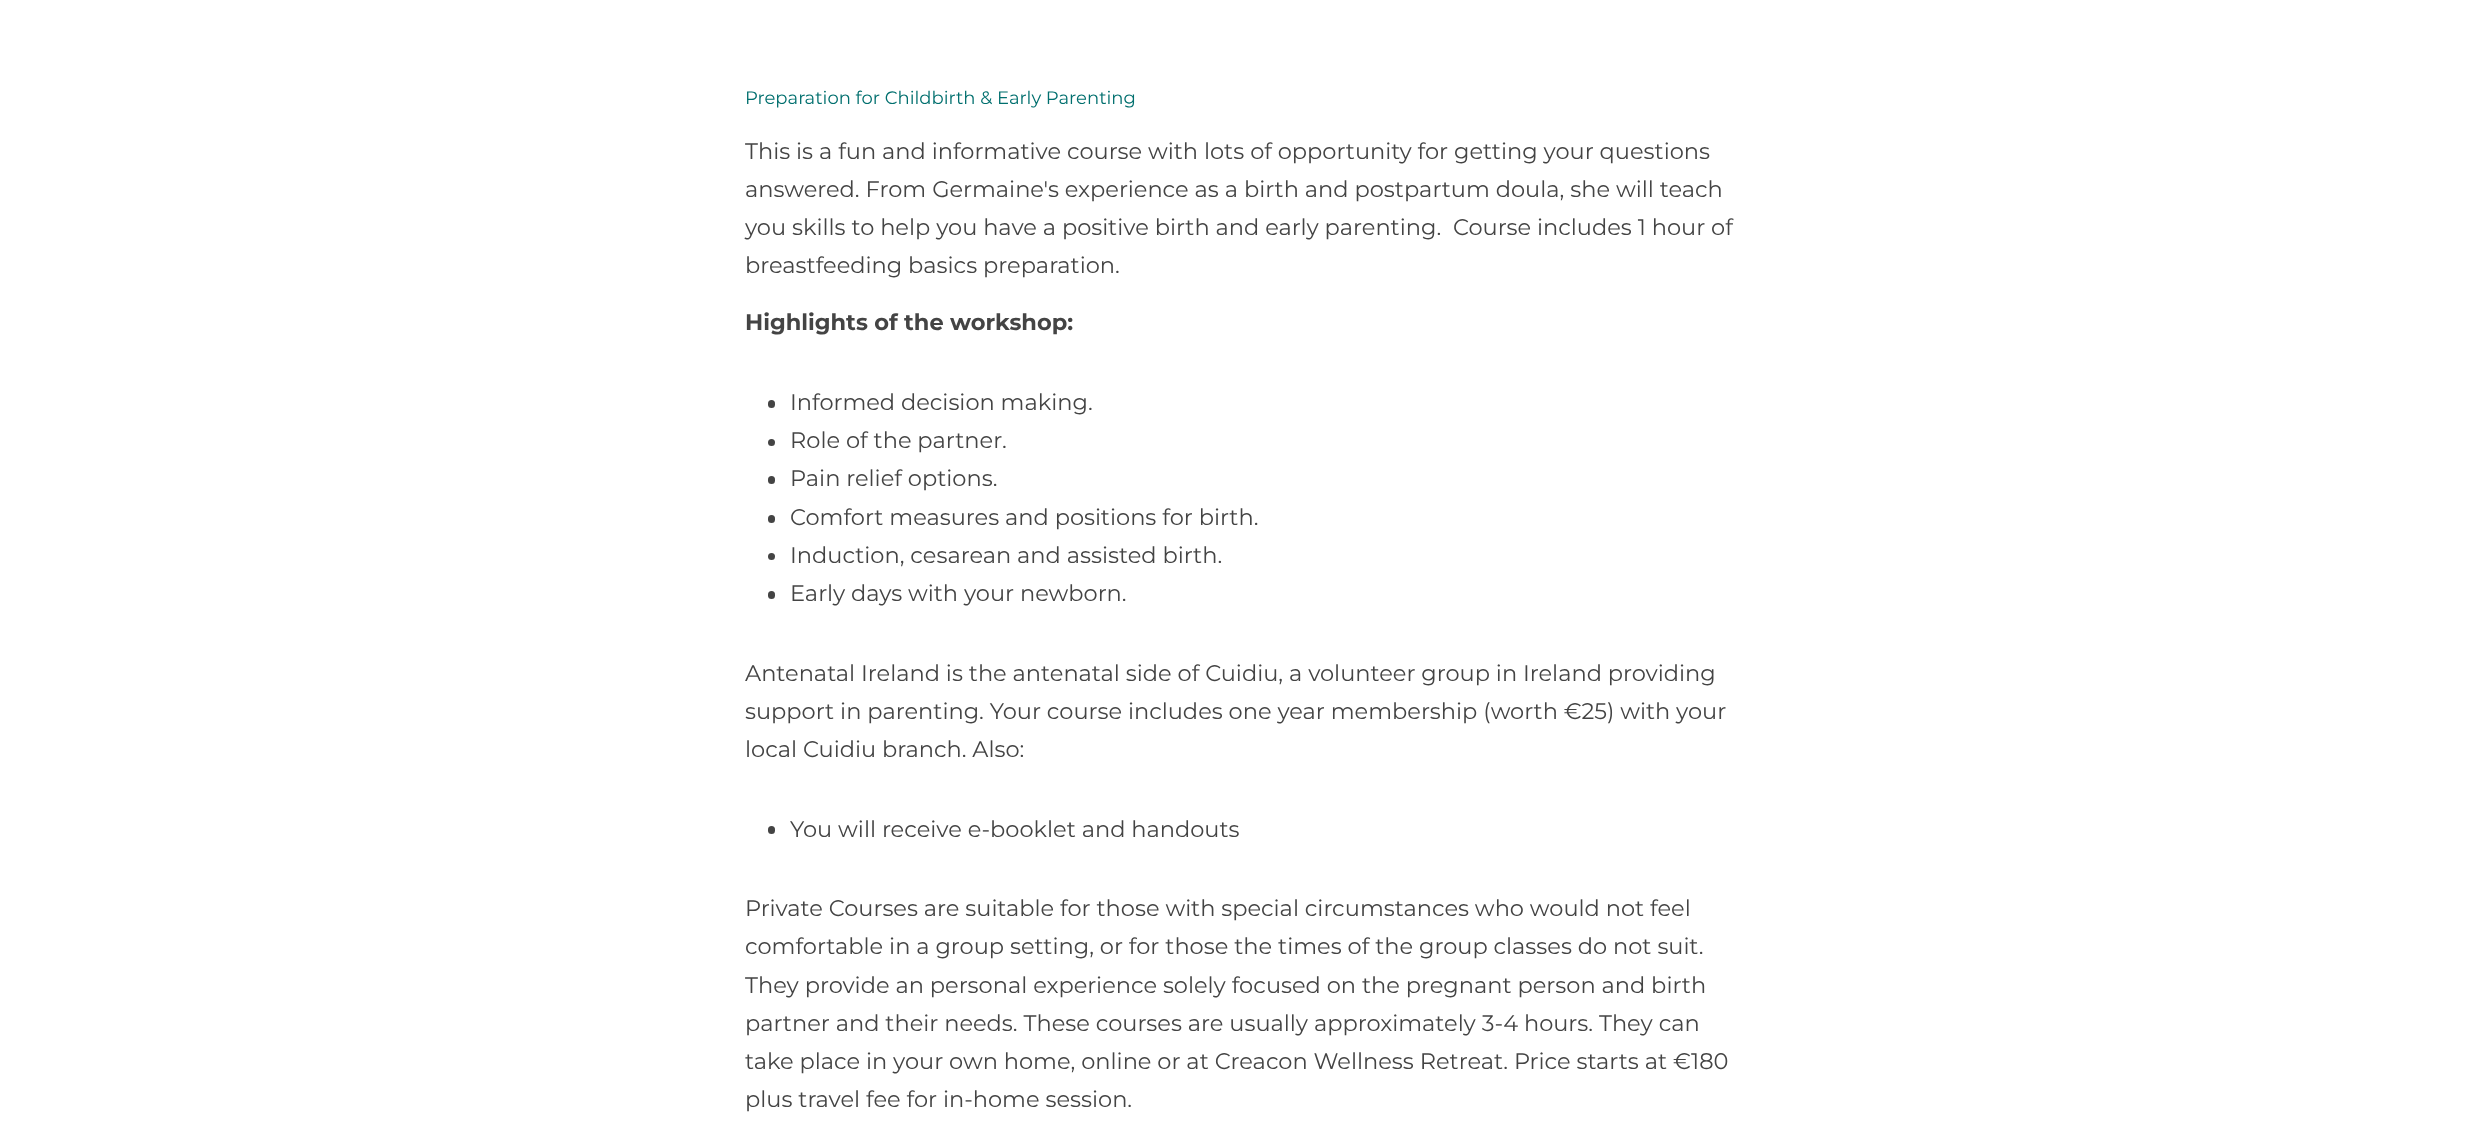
<!DOCTYPE html>
<meta charset="utf-8">
<style>body { margin: 0 } canvas { display: block }</style>
<canvas id="canvas" width="2485" height="1148"></canvas>
<script type="module">
  const canvas = document.getElementById("canvas");
  const g = canvas.getContext("2d");
  g.miterLimit = 4;
  g.fontKerning = "normal";
  function drawText(s, x, y, [font, color]) {
    g.font = font;
    g.fillStyle = color;
    g.fillText(s, x, y);
  }
  function fillBox(x, y, w, h, color) {
    g.fillStyle = color;
    g.fillRect(x, y, w, h);
  }
  function fillRounded(x, y, w, h, r, color) {
    g.fillStyle = color;
    g.beginPath();
    g.roundRect(x, y, w, h, r);
    g.fill();
  }

  const s1 = ["18px Montserrat", "#006F6E"];
  const s2 = ["22.5px Montserrat", "#444444"];
  const s3 = ["bold 22.5px Montserrat", "#444444"];

  fillBox(0, 0, 2485, 1148, "#FFFFFF");
  drawText("Preparation for Childbirth & Early Parenting", 745, 104, s1);
  drawText("This is a fun and informative course with lots of opportunity for getting your questions", 745, 159, s2);
  drawText("answered. From Germaine's experience as a birth and postpartum doula, she will teach", 745, 197, s2);
  drawText("you skills to help you have a positive birth and early parenting.  Course includes 1 hour of", 745, 235, s2);
  drawText("breastfeeding basics preparation.", 745, 273, s2);
  drawText("Highlights of the workshop:", 745, 330, s3);
  fillRounded(768, 400, 7, 8, 3.5, "#444444");
  drawText("Informed decision making.", 790, 410, s2);
  g.beginPath();
  g.arc(771.5, 442.5, 3.5, 0, Math.PI * 2);
  g.fill();
  drawText("Role of the partner.", 790, 448, s2);
  fillRounded(768, 476, 7, 8, 3.5, "#444444");
  drawText("Pain relief options.", 790, 486, s2);
  fillRounded(768, 515, 7, 8, 3.5, "#444444");
  drawText("Comfort measures and positions for birth.", 790, 525, s2);
  g.beginPath();
  g.arc(771.5, 556.5, 3.5, 0, Math.PI * 2);
  g.fill();
  drawText("Induction, cesarean and assisted birth.", 790, 563, s2);
  fillRounded(768, 591, 7, 8, 3.5, "#444444");
  drawText("Early days with your newborn.", 790, 601, s2);
  drawText("Antenatal Ireland is the antenatal side of Cuidiu, a volunteer group in Ireland providing", 745, 681, s2);
  drawText("support in parenting. Your course includes one year membership (worth €25) with your", 745, 719, s2);
  drawText("local Cuidiu branch. Also:", 745, 757, s2);
  fillRounded(768, 826, 7, 8, 3.5, "#444444");
  drawText("You will receive e-booklet and handouts", 790, 837, s2);
  drawText("Private Courses are suitable for those with special circumstances who would not feel", 745, 916, s2);
  drawText("comfortable in a group setting, or for those the times of the group classes do not suit.", 745, 954, s2);
  drawText("They provide an personal experience solely focused on the pregnant person and birth", 745, 993, s2);
  drawText("partner and their needs. These courses are usually approximately 3-4 hours. They can", 745, 1031, s2);
  drawText("take place in your own home, online or at Creacon Wellness Retreat. Price starts at €180", 745, 1069, s2);
  drawText("plus travel fee for in-home session.", 745, 1107, s2);
</script>
